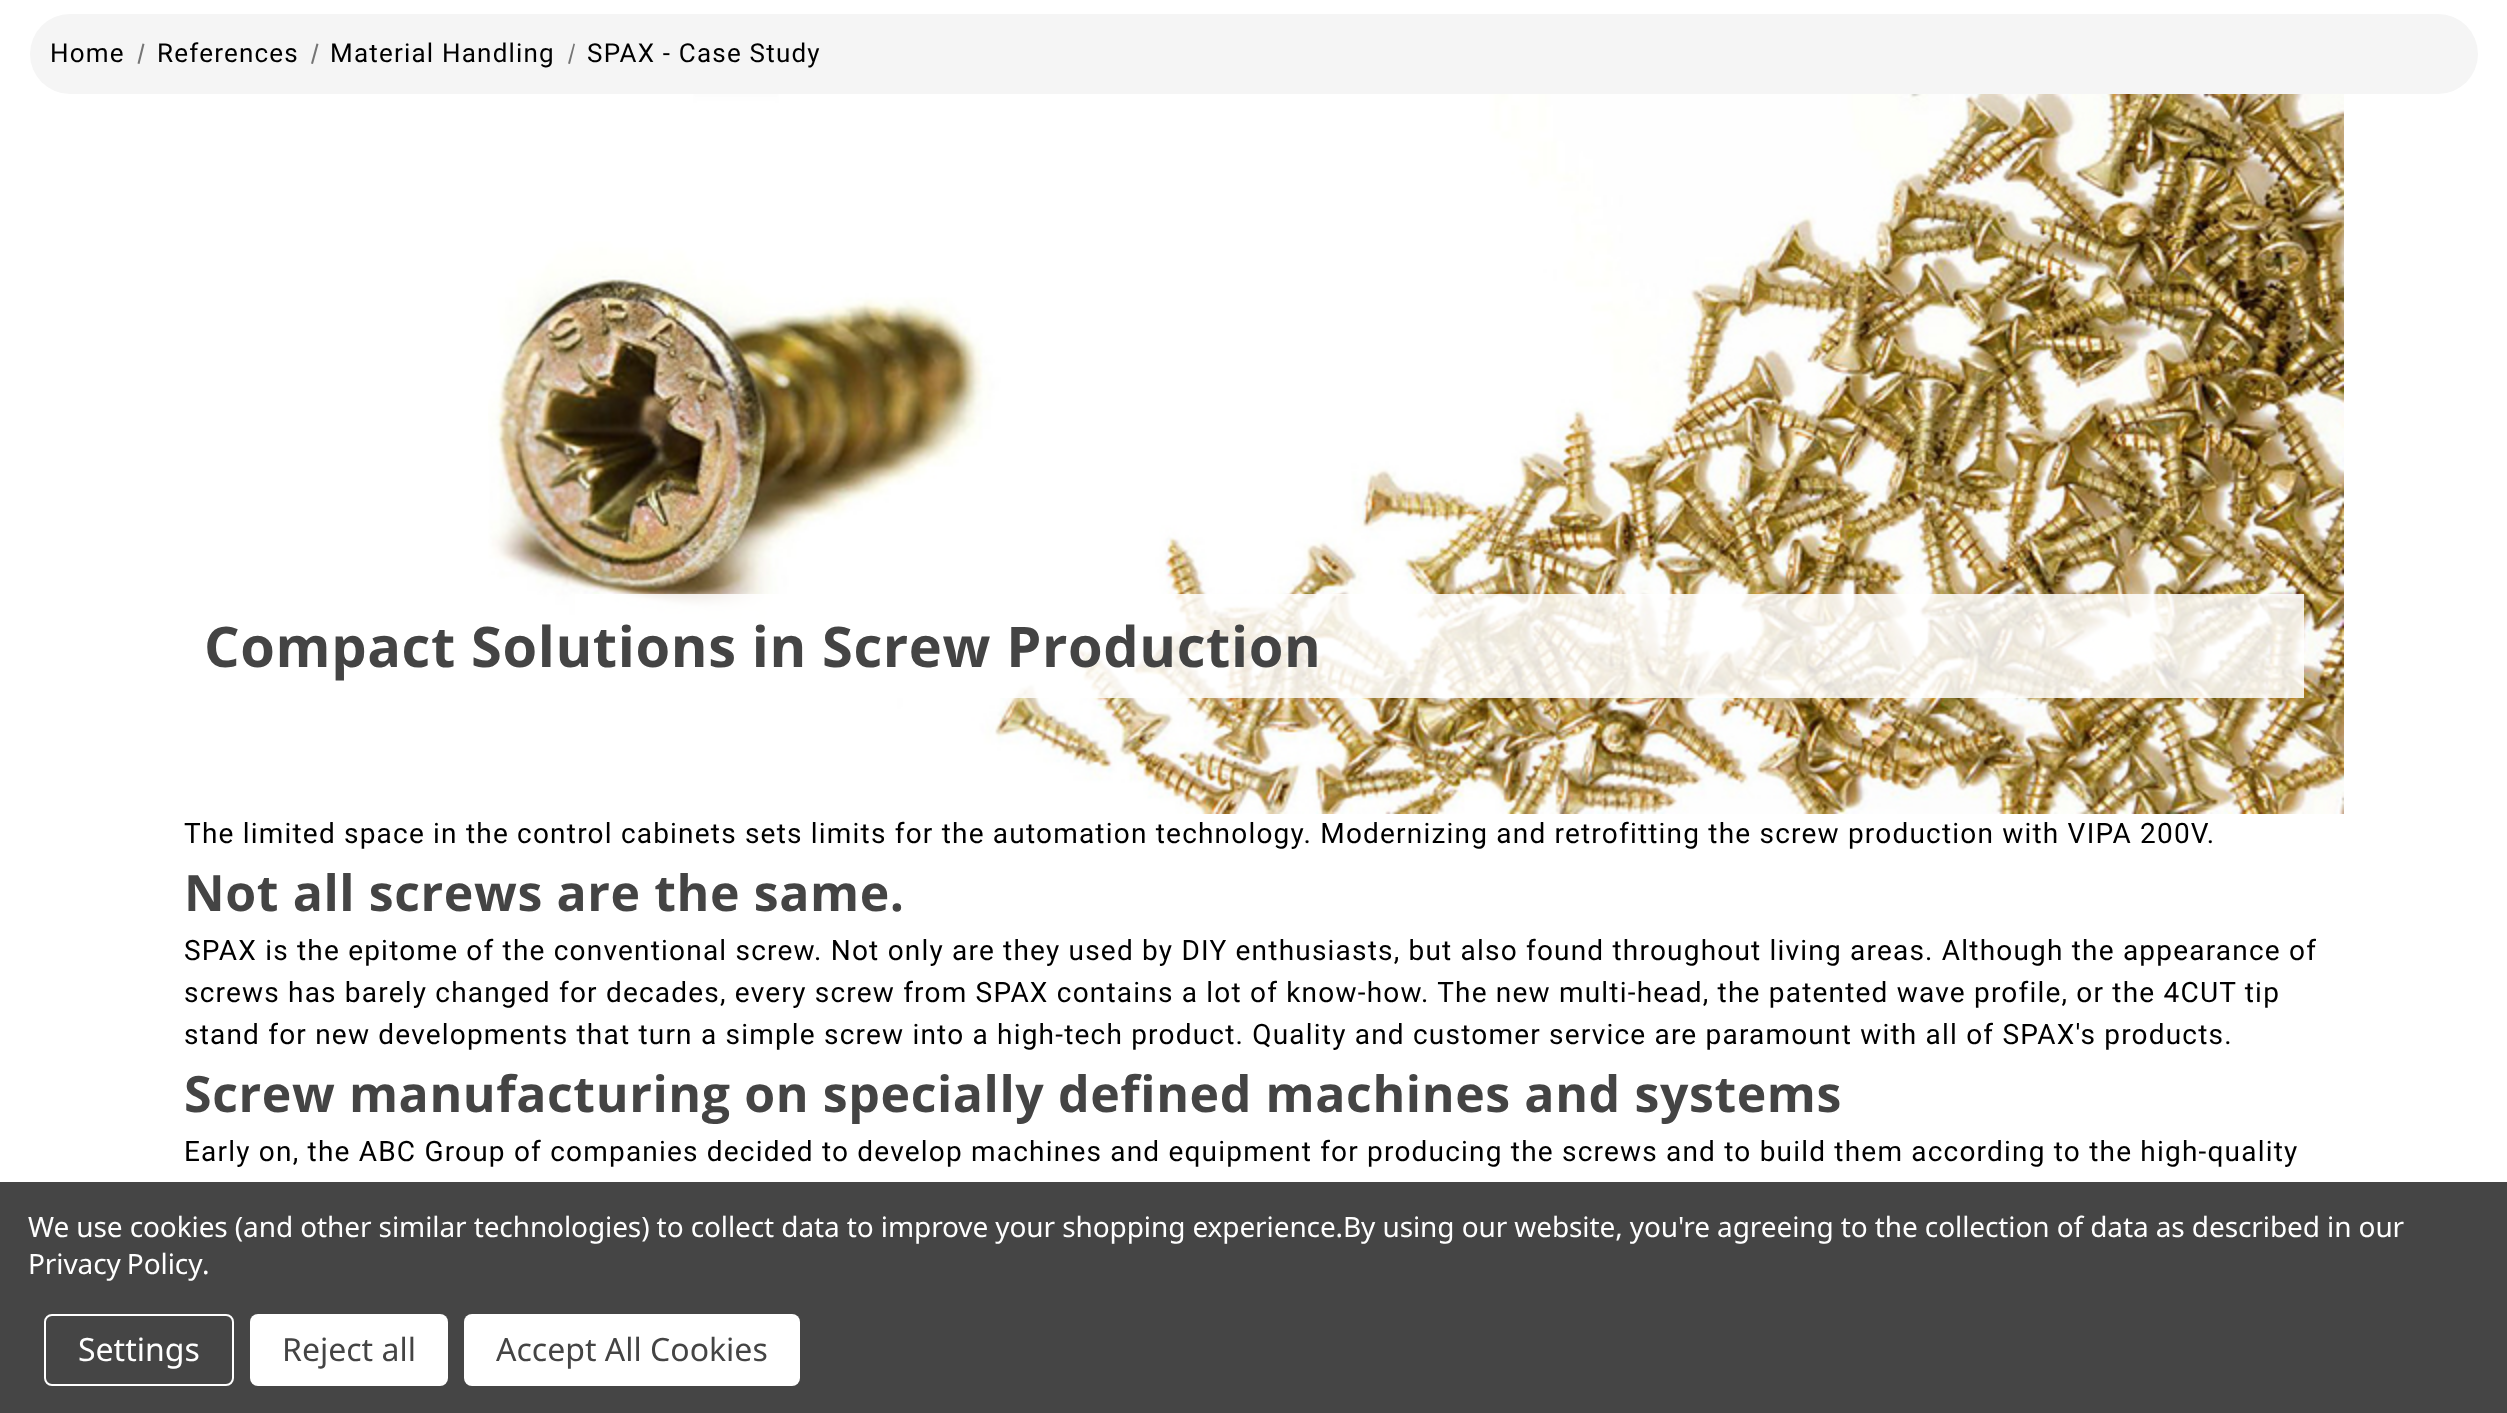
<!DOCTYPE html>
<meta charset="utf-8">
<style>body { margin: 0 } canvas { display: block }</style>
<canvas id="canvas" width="2507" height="1413"></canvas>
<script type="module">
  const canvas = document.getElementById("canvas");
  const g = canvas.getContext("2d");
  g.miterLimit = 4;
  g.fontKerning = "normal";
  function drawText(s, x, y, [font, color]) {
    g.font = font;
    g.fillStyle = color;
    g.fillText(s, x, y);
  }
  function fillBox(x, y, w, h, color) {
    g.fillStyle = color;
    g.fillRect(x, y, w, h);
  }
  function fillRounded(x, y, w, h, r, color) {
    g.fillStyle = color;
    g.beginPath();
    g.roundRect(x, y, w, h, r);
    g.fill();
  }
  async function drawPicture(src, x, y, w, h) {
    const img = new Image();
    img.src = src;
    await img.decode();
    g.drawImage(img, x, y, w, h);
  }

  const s1 = ["26px Roboto", "#000000"];
  const s2 = ["bold 56px Open Sans", "#444444"];
  const s3 = ["28px Roboto", "#000000"];
  const s4 = ["bold 50px Open Sans", "#444444"];
  const s5 = ["28px Noto Sans", "#FFFFFF"];
  const s6 = ["32px Noto Sans", "#FFFFFF"];
  const s7 = ["32px Noto Sans", "#444444"];

  fillBox(0, 0, 2507, 1413, "#FFFFFF");
  fillRounded(30, 14, 2448, 80, 40, "#F5F5F5");
  g.letterSpacing = "1.2px";
  drawText("Home", 50, 62, s1);
  g.fillStyle = "#757575";
  g.beginPath();
  g.moveTo(142.5, 43.5);
  g.lineTo(144.5, 44);
  g.lineTo(139.5, 64);
  g.lineTo(137.5, 63.5);
  g.closePath();
  g.fill();
  drawText("References", 157, 62, s1);
  g.fillStyle = "#757575";
  g.beginPath();
  g.moveTo(316.5, 43.5);
  g.lineTo(318.5, 44);
  g.lineTo(313, 64);
  g.lineTo(311, 63.5);
  g.closePath();
  g.fill();
  drawText("Material Handling", 330, 62, s1);
  g.fillStyle = "#757575";
  g.beginPath();
  g.moveTo(573.5, 43.5);
  g.lineTo(575, 44);
  g.lineTo(570, 64);
  g.lineTo(568, 63.5);
  g.closePath();
  g.fill();
  drawText("SPAX - Case Study", 587, 62, s1);
  await drawPicture("pic1.png", 488, 94, 1856, 720);
  fillBox(575, 594, 1729, 104, "rgba(255, 255, 255, 0.85)");
  g.letterSpacing = "0.6px";
  drawText("Compact Solutions in Screw Production", 204, 667, s2);
  g.letterSpacing = "1.2px";
  drawText("The limited space in the control cabinets sets limits for the automation technology. Modernizing and retrofitting the screw production with VIPA 200V.", 184, 843, s3);
  g.letterSpacing = "0.6px";
  drawText("Not all screws are the same.", 184, 911, s4);
  g.letterSpacing = "1.2px";
  drawText("SPAX is the epitome of the conventional screw. Not only are they used by DIY enthusiasts, but also found throughout living areas. Although the appearance of", 184, 960, s3);
  drawText("screws has barely changed for decades, every screw from SPAX contains a lot of know-how. The new multi-head, the patented wave profile, or the 4CUT tip", 184, 1002, s3);
  drawText("stand for new developments that turn a simple screw into a high-tech product. Quality and customer service are paramount with all of SPAX's products.", 184, 1044, s3);
  g.letterSpacing = "0.6px";
  drawText("Screw manufacturing on specially defined machines and systems", 184, 1112, s4);
  g.letterSpacing = "1.2px";
  drawText("Early on, the ABC Group of companies decided to develop machines and equipment for producing the screws and to build them according to the high-quality", 184, 1161, s3);
  fillBox(0, 1182, 2507, 231, "#454545");
  g.letterSpacing = "-0.1px";
  drawText("We use cookies (and other similar technologies) to collect data to improve your shopping experience.By using our website, you're agreeing to the collection of data as described in our", 28, 1237, s5);
  g.wordSpacing = "-1px";
  drawText("Privacy Policy", 28, 1274, s5);
  g.wordSpacing = "0px";
  drawText(".", 202, 1274, s5);
  g.beginPath();
  g.roundRect(45, 1315, 188, 70, 7);
  g.strokeStyle = "#FFFFFF";
  g.lineWidth = 2;
  g.stroke();
  g.letterSpacing = "0px";
  drawText("Settings", 78, 1361, s6);
  fillRounded(250, 1314, 198, 72, 8, "#FFFFFF");
  drawText("Reject all", 282, 1361, s7);
  fillRounded(464, 1314, 336, 72, 8, "#FFFFFF");
  drawText("Accept All Cookies", 496, 1361, s7);
</script>
